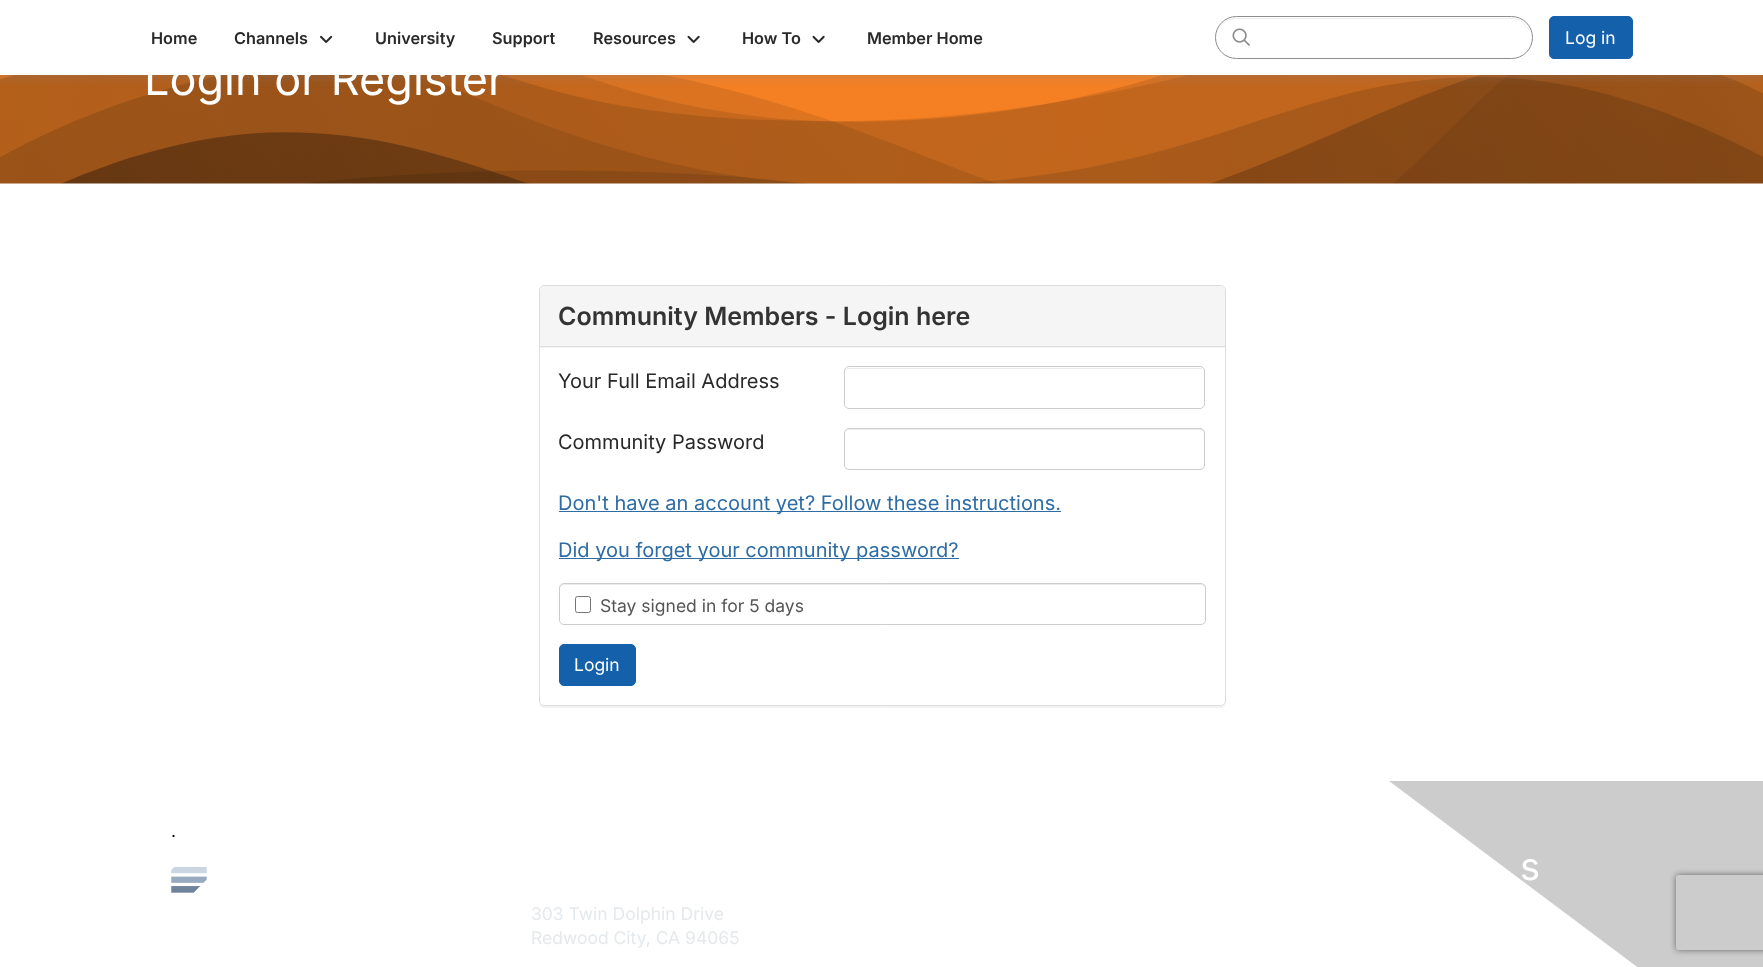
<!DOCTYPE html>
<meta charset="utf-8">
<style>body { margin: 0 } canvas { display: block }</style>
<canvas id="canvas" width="1763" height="967"></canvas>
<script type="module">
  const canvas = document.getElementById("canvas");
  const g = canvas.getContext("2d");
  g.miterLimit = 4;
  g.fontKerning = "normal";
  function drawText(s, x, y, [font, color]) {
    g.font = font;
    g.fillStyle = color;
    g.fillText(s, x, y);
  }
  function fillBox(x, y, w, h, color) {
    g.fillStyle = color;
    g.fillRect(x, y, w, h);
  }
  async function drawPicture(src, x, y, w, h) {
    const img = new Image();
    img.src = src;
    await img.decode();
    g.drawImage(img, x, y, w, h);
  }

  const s1 = ["600 16.25px Inter", "#292929"];
  const s2 = ["17.5px Inter", "#FFFFFF"];
  const s3 = ["45px Inter", "#FFFFFF"];
  const s4 = ["600 25px Inter", "#333333"];
  const s5 = ["20px Inter", "#292929"];
  const s6 = ["20px Inter", "#2E6DA4"];
  const s7 = ["17.5px Inter", "#555555"];
  const s8 = ["17.5px Inter", "#000000"];
  const s9 = ["38px Inter", "#FFFFFF"];
  const s10 = ["17.5px Inter", "#E5E9EB"];

  fillBox(0, 0, 1763, 967, "#FFFFFF");
  await drawPicture("pic4.png", 0, 75, 1763, 109);
  g.fillStyle = "rgba(131, 135, 145, 0.24)";
  g.filter = "blur(5px)";
  g.beginPath();
  g.rect(0, 3, 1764, 75);
  g.fill();
  g.filter = "none";
  fillBox(0, 0, 1763, 75, "#FFFFFF");
  drawText("Home", 151, 44, s1);
  drawText("Channels", 234, 44, s1);
  await drawPicture("pic1.png", 320, 35, 13, 8);
  drawText("University", 375, 44, s1);
  drawText("Support", 492, 44, s1);
  drawText("Resources", 593, 44, s1);
  await drawPicture("pic2.png", 687, 35, 13, 8);
  drawText("How To", 742, 44, s1);
  await drawPicture("pic2.png", 812, 35, 13, 8);
  drawText("Member Home", 867, 44, s1);
  g.fillStyle = "#ECECEC";
  g.beginPath();
  g.moveTo(1236, 19);
  g.lineTo(1511, 19);
  g.bezierCurveTo(1522, 19, 1531, 28, 1531, 39);
  g.bezierCurveTo(1531, 27, 1522, 18, 1511, 18);
  g.lineTo(1236, 18);
  g.bezierCurveTo(1225, 18, 1216, 27, 1216, 39);
  g.bezierCurveTo(1216, 28, 1225, 19, 1236, 19);
  g.closePath();
  g.fill();
  g.beginPath();
  g.roundRect(1215.5, 16.5, 317, 42, 21);
  g.strokeStyle = "#8C8C8C";
  g.stroke();
  await drawPicture("pic3.png", 1232, 28, 18, 18);
  g.fillStyle = "#1460AA";
  g.beginPath();
  g.roundRect(1549.5, 16.5, 83, 42, 4.5);
  g.fill();
  g.strokeStyle = "#1460AA";
  g.stroke();
  drawText("Log in", 1565, 44, s2);
  drawText("Login or Register", 144, 95, s3);
  g.save();
  g.beginPath();
  g.moveTo(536, 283);
  g.lineTo(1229, 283);
  g.lineTo(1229, 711);
  g.lineTo(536, 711);
  g.closePath();
  g.moveTo(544, 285);
  g.lineTo(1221, 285);
  g.bezierCurveTo(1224, 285, 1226, 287, 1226, 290);
  g.lineTo(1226, 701);
  g.bezierCurveTo(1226, 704, 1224, 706, 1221, 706);
  g.lineTo(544, 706);
  g.bezierCurveTo(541, 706, 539, 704, 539, 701);
  g.lineTo(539, 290);
  g.bezierCurveTo(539, 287, 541, 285, 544, 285);
  g.closePath();
  g.clip("evenodd");
  g.fillStyle = "rgba(0, 0, 0, 0.05)";
  g.filter = "blur(0.5px)";
  g.beginPath();
  g.roundRect(539, 286, 687, 422, 5);
  g.fill();
  g.filter = "none";
  g.restore();
  g.beginPath();
  g.roundRect(539.5, 285.5, 686, 420, 4.5);
  g.strokeStyle = "#DDDDDD";
  g.stroke();
  g.fillStyle = "#F5F5F5";
  g.beginPath();
  g.roundRect(540, 286, 685, 62, [4, 4, 0, 0]);
  g.fill();
  fillBox(540, 346, 685, 1, "#DDDDDD");
  drawText("Community Members - Login here", 558, 325, s4);
  drawText("Your Full Email Address", 558, 388, s5);
  g.fillStyle = "#ECECEC";
  g.beginPath();
  g.moveTo(849, 369);
  g.lineTo(1200, 369);
  g.bezierCurveTo(1202, 369, 1204, 370, 1204, 372);
  g.bezierCurveTo(1204, 370, 1202, 368, 1200, 368);
  g.lineTo(849, 368);
  g.bezierCurveTo(847, 368, 845, 370, 845, 372);
  g.bezierCurveTo(845, 370, 847, 369, 849, 369);
  g.closePath();
  g.fill();
  g.beginPath();
  g.roundRect(844.5, 366.5, 360, 42, 4.5);
  g.strokeStyle = "#CCCCCC";
  g.stroke();
  drawText("Community Password", 558, 449, s5);
  g.fillStyle = "#ECECEC";
  g.beginPath();
  g.moveTo(849, 430);
  g.lineTo(1200, 430);
  g.bezierCurveTo(1202, 430, 1204, 432, 1204, 434);
  g.bezierCurveTo(1204, 431, 1203, 429, 1200, 429);
  g.lineTo(848, 429);
  g.lineTo(846, 431);
  g.lineTo(845, 434);
  g.bezierCurveTo(845, 432, 847, 430, 849, 430);
  g.closePath();
  g.fill();
  g.beginPath();
  g.roundRect(844.5, 428.5, 360, 41, 4.5);
  g.stroke();
  fillBox(559, 511, 502, 1, "#2E6DA4");
  drawText("Don't have an account yet? Follow these instructions.", 558, 510, s6);
  fillBox(559, 558, 400, 1, "#2E6DA4");
  drawText("Did you forget your community password?", 558, 557, s6);
  g.fillStyle = "#ECECEC";
  g.beginPath();
  g.moveTo(564, 585);
  g.lineTo(1201, 585);
  g.bezierCurveTo(1203, 585, 1205, 587, 1205, 589);
  g.bezierCurveTo(1205, 586, 1204, 584, 1201, 584);
  g.lineTo(564, 584);
  g.bezierCurveTo(561, 584, 560, 586, 560, 589);
  g.bezierCurveTo(560, 587, 562, 585, 564, 585);
  g.closePath();
  g.fill();
  g.beginPath();
  g.roundRect(559.5, 583.5, 646, 41, 4.5);
  g.stroke();
  g.beginPath();
  g.roundRect(575.5, 596.5, 15, 16, 2);
  g.strokeStyle = "#767676";
  g.stroke();
  drawText("Stay signed in for 5 days", 600, 612, s7);
  g.fillStyle = "#1460AA";
  g.beginPath();
  g.roundRect(559.5, 644.5, 76, 41, 4.5);
  g.fill();
  g.strokeStyle = "#1460AA";
  g.stroke();
  drawText("Login", 574, 671, s2);
  g.save();
  g.beginPath();
  g.moveTo(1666, 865);
  g.lineTo(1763, 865);
  g.lineTo(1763, 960);
  g.lineTo(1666, 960);
  g.closePath();
  g.moveTo(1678.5, 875);
  g.lineTo(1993.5, 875);
  g.bezierCurveTo(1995, 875, 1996, 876, 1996, 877.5);
  g.lineTo(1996, 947.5);
  g.bezierCurveTo(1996, 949, 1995, 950, 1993.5, 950);
  g.lineTo(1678.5, 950);
  g.bezierCurveTo(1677, 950, 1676, 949, 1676, 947.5);
  g.lineTo(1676, 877.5);
  g.bezierCurveTo(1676, 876, 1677, 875, 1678.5, 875);
  g.closePath();
  g.clip("evenodd");
  g.fillStyle = "#808080";
  g.filter = "blur(3px)";
  g.beginPath();
  g.roundRect(1676, 875, 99, 75, 2.5);
  g.fill();
  g.filter = "none";
  g.restore();
  drawText(".", 171, 837, s8);
  await drawPicture("pic5.png", 171, 867, 36, 26);
  g.fillStyle = "rgba(0, 0, 0, 0.2)";
  g.beginPath();
  g.moveTo(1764, 781);
  g.lineTo(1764, 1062);
  g.lineTo(1389, 781);
  g.closePath();
  g.fill();
  drawText("s", 1520, 880, s9);
  drawText("303 Twin Dolphin Drive", 531, 920, s10);
  drawText("Redwood City, CA 94065", 531, 944, s10);
</script>
